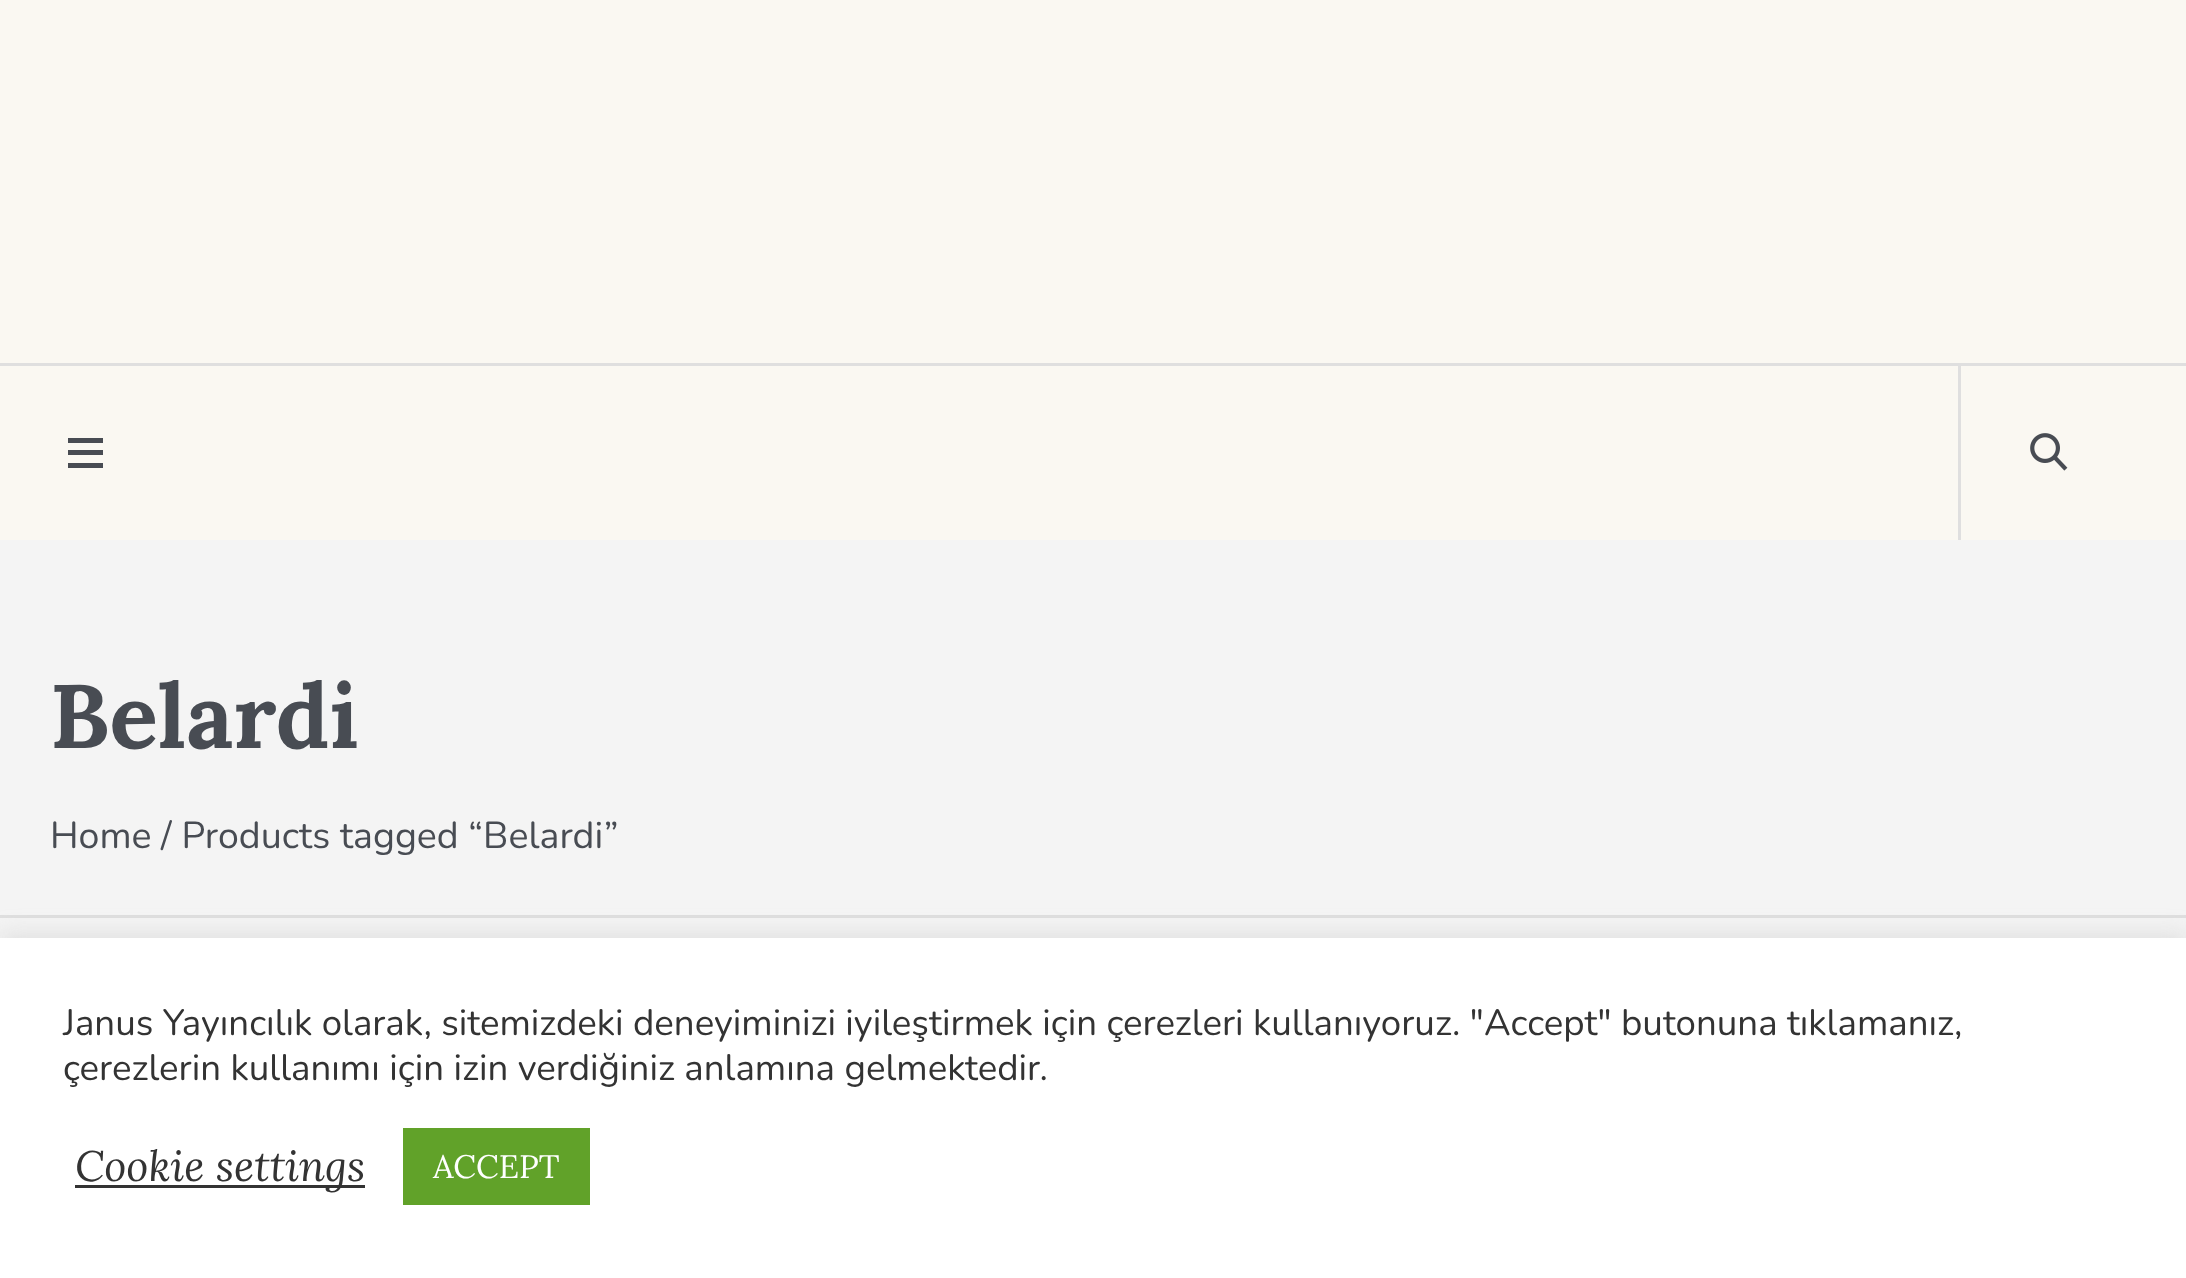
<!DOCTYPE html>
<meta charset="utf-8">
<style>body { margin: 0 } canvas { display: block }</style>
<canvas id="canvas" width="2186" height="1278"></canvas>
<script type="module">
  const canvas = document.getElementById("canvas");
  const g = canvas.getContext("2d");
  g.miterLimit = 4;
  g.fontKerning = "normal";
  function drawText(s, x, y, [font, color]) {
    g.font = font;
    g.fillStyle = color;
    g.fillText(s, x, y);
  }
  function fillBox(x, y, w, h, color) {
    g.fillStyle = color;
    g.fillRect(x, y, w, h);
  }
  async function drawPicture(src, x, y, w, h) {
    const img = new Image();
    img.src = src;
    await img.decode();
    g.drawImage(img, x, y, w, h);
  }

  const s1 = ["bold 90px Lora", "#484C53"];
  const s2 = ["37.5px Nunito", "#484C53"];
  const s3 = ["36.67px Nunito", "#333333"];
  const s4 = ["italic 42.5px Lora", "#333333"];
  const s5 = ["32.5px Lora", "#FFFFFF"];

  fillBox(0, 0, 2186, 1278, "#F4F4F4");
  fillBox(0, 0, 2186, 363, "#FAF8F2");
  fillBox(0, 366, 2186, 174, "#FAF8F2");
  fillBox(0, 363, 2186, 3, "#DFDFDF");
  fillBox(68, 450, 35, 5, "#484C53");
  fillBox(68, 438, 35, 5, "#484C53");
  fillBox(68, 463, 35, 5, "#484C53");
  fillBox(1958, 365, 3, 175, "#DFDFDF");
  await drawPicture("pic1.png", 2030, 433, 38, 38);
  fillBox(0, 915, 2186, 3, "#DFDFDF");
  drawText("Belardi", 50, 748, s1);
  drawText("Home / Products tagged “Belardi”", 50, 848, s2);
  g.fillStyle = "rgba(172, 171, 171, 0.3)";
  g.filter = "blur(12.5px)";
  g.beginPath();
  g.rect(0, 935, 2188, 343);
  g.fill();
  g.filter = "none";
  fillBox(0, 938, 2186, 340, "#FFFFFF");
  g.wordSpacing = "-0.1px";
  drawText("Janus Yayıncılık olarak, sitemizdeki deneyiminizi iyileştirmek için çerezleri kullanıyoruz. \"Accept\" butonuna tıklamanız,", 63, 1035, s3);
  g.wordSpacing = "0px";
  drawText("çerezlerin kullanımı için izin verdiğiniz anlamına gelmektedir.", 63, 1080, s3);
  fillBox(75, 1185, 290, 3, "#333333");
  drawText("Cookie settings", 75, 1181, s4);
  fillBox(403, 1128, 187, 77, "#61A229");
  drawText("ACCEPT", 433, 1178, s5);
</script>
